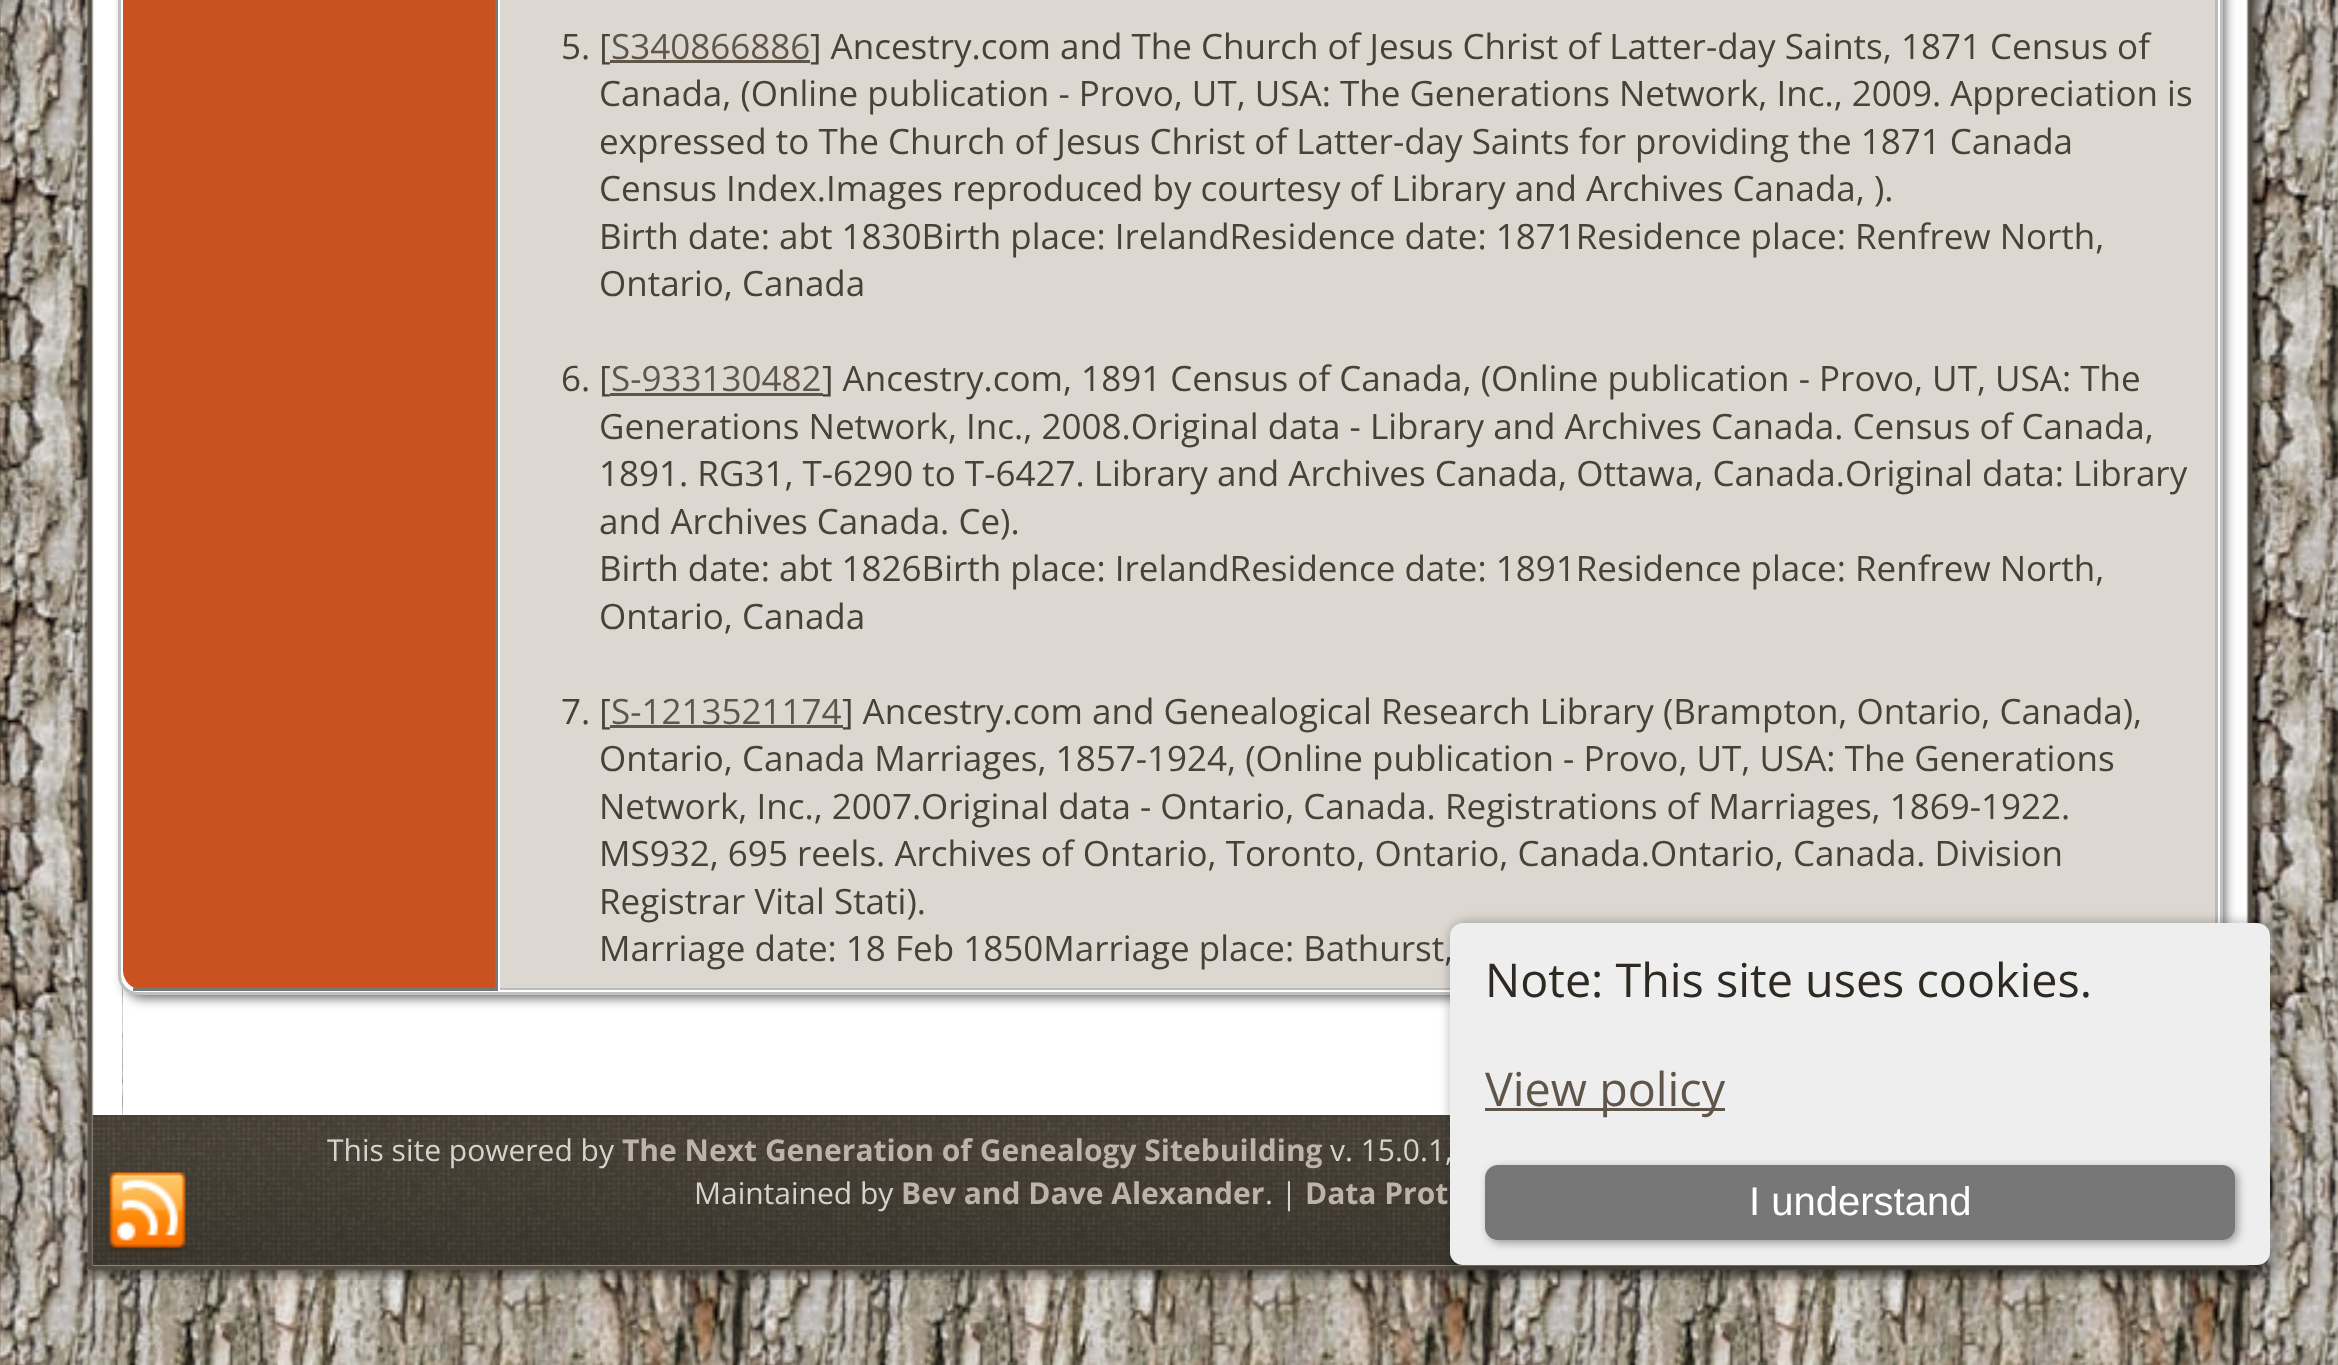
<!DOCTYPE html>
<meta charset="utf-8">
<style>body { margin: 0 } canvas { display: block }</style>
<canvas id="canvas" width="2338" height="1365"></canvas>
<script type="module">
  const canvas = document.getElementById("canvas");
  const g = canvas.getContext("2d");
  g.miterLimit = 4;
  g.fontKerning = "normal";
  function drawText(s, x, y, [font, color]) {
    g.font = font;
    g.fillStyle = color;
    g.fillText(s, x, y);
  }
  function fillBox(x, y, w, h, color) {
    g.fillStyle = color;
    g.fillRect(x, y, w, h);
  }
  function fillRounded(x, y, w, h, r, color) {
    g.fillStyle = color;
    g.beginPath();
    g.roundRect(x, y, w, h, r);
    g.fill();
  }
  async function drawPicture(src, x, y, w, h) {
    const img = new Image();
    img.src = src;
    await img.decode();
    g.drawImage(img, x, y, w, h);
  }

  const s1 = ["35px Open Sans", "#484137"];
  const s2 = ["35px Open Sans", "#5F5649"];
  const s3 = ["30px Open Sans", "#D7D2CB"];
  const s4 = ["46.7px Open Sans", "#2E2A23"];
  const s5 = ["46.7px Open Sans", "#5F5649"];
  const s6 = ["40px Liberation Sans", "#FFFFFF"];
  const s7 = ["bold 30px Open Sans", "#BCB4A9"];

  fillBox(0, 0, 2338, 1365, "#FFFFFF");
  await drawPicture("pic1.png", 0, 0, 2338, 1365);
  await drawPicture("pic2.png", 84, 0, 39, 1235);
  await drawPicture("pic6.png", 2223, 0, 40, 925);
  fillBox(123, 988, 1327, 127, "#FFFFFF");
  g.fillStyle = "#666666";
  g.filter = "blur(6px)";
  g.beginPath();
  g.roundRect(125, -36, 2100, 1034, 18);
  g.fill();
  g.filter = "none";
  g.fillStyle = "#FFFFFF";
  g.beginPath();
  g.roundRect(119.5, -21.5, 2102, 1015, 18.5);
  g.fill();
  g.strokeStyle = "#C0C0C0";
  g.lineWidth = 3;
  g.stroke();
  g.fillStyle = "#CA521E";
  g.beginPath();
  g.moveTo(143, -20);
  g.lineTo(498, -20);
  g.lineTo(498, 990);
  g.lineTo(143, 990);
  g.bezierCurveTo(132, 990, 123, 981, 123, 970);
  g.lineTo(123, 0);
  g.bezierCurveTo(123, -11, 132, -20, 143, -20);
  g.closePath();
  g.fill();
  fillBox(495, 0, 3, 990, "#777777");
  fillBox(133, 988, 365, 3, "#777777");
  fillBox(500, 0, 1715, 988, "#DCD7D1");
  g.fillStyle = "#BBBBBB";
  g.beginPath();
  g.moveTo(500, -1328);
  g.lineTo(2198, -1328);
  g.bezierCurveTo(2209, -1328, 2218, -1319, 2218, -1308);
  g.lineTo(2218, 970);
  g.bezierCurveTo(2218, 981, 2209, 990, 2198, 990);
  g.lineTo(500, 990);
  g.closePath();
  g.moveTo(500, -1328);
  g.lineTo(2198, -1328);
  g.bezierCurveTo(2207, -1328, 2215, -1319, 2215, -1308);
  g.lineTo(2215, 970);
  g.bezierCurveTo(2215, 980, 2207, 988, 2198, 988);
  g.lineTo(500, 988);
  g.closePath();
  g.fill("evenodd");
  drawText("5. [", 561, 59, s1);
  drawText("S340866886", 611, 59, s2);
  fillBox(610, 60, 200, 3, "#5F5649");
  drawText("] Ancestry.com and The Church of Jesus Christ of Latter-day Saints, 1871 Census of", 810, 59, s1);
  drawText("Canada, (Online publication - Provo, UT, USA: The Generations Network, Inc., 2009. Appreciation is", 599, 106, s1);
  drawText("expressed to The Church of Jesus Christ of Latter-day Saints for providing the 1871 Canada", 599, 154, s1);
  drawText("Census Index.Images reproduced by courtesy of Library and Archives Canada, ).", 599, 201, s1);
  drawText("Birth date: abt 1830Birth place: IrelandResidence date: 1871Residence place: Renfrew North,", 599, 249, s1);
  drawText("Ontario, Canada", 599, 296, s1);
  drawText("6. [", 561, 391, s1);
  drawText("S-933130482", 611, 391, s2);
  fillBox(610, 393, 213, 3, "#5F5649");
  drawText("] Ancestry.com, 1891 Census of Canada, (Online publication - Provo, UT, USA: The", 822, 391, s1);
  drawText("Generations Network, Inc., 2008.Original data - Library and Archives Canada. Census of Canada,", 599, 439, s1);
  drawText("1891. RG31, T-6290 to T-6427. Library and Archives Canada, Ottawa, Canada.Original data: Library", 599, 486, s1);
  drawText("and Archives Canada. Ce).", 599, 534, s1);
  drawText("Birth date: abt 1826Birth place: IrelandResidence date: 1891Residence place: Renfrew North,", 599, 581, s1);
  drawText("Ontario, Canada", 599, 629, s1);
  drawText("7. [", 561, 724, s1);
  drawText("S-1213521174", 611, 724, s2);
  fillBox(610, 725, 233, 3, "#5F5649");
  drawText("] Ancestry.com and Genealogical Research Library (Brampton, Ontario, Canada),", 842, 724, s1);
  drawText("Ontario, Canada Marriages, 1857-1924, (Online publication - Provo, UT, USA: The Generations", 599, 771, s1);
  drawText("Network, Inc., 2007.Original data - Ontario, Canada. Registrations of Marriages, 1869-1922.", 599, 819, s1);
  drawText("MS932, 695 reels. Archives of Ontario, Toronto, Ontario, Canada.Ontario, Canada. Division", 599, 866, s1);
  drawText("Registrar Vital Stati).", 599, 914, s1);
  drawText("Marriage date: 18 Feb 1850Marriage place: Bathurst,", 599, 961, s1);
  await drawPicture("pic3.png", 92, 1115, 1358, 25);
  await drawPicture("pic7.png", 85, 1235, 38, 45);
  await drawPicture("pic5.png", 92, 1140, 1371, 125);
  await drawPicture("pic9.png", 2217, 1264, 45, 16);
  await drawPicture("pic8.png", 122, 1265, 2096, 15);
  g.fillStyle = "rgba(0, 0, 0, 0.2)";
  g.filter = "blur(5px)";
  g.beginPath();
  g.roundRect(1448, 920, 835, 358, 20);
  g.fill();
  g.filter = "none";
  drawText("v. 15.0.1,", 1330, 1161, s3);
  fillRounded(1450, 923, 820, 342, 13, "#EEEEEE");
  drawText("Note: This site uses cookies.", 1485, 997, s4);
  fillBox(1485, 1108, 240, 3, "#5F5649");
  drawText("View policy", 1485, 1106, s5);
  g.fillStyle = "#999999";
  g.filter = "blur(4px)";
  g.beginPath();
  g.roundRect(1488, 1168, 750, 75, 13);
  g.fill();
  g.filter = "none";
  fillRounded(1485, 1165, 750, 75, 13, "#777777");
  drawText("I understand", 1749, 1215, s6);
  await drawPicture("pic4.png", 108, 1172, 79, 79);
  drawText("This site powered by", 327, 1161, s3);
  drawText("The Next Generation of Genealogy Sitebuilding", 622, 1161, s7);
  drawText("Maintained by", 694, 1204, s3);
  drawText("Bev and Dave Alexander", 901, 1204, s7);
  drawText(". |", 1265, 1204, s3);
  drawText("Data Prot", 1305, 1204, s7);
</script>
